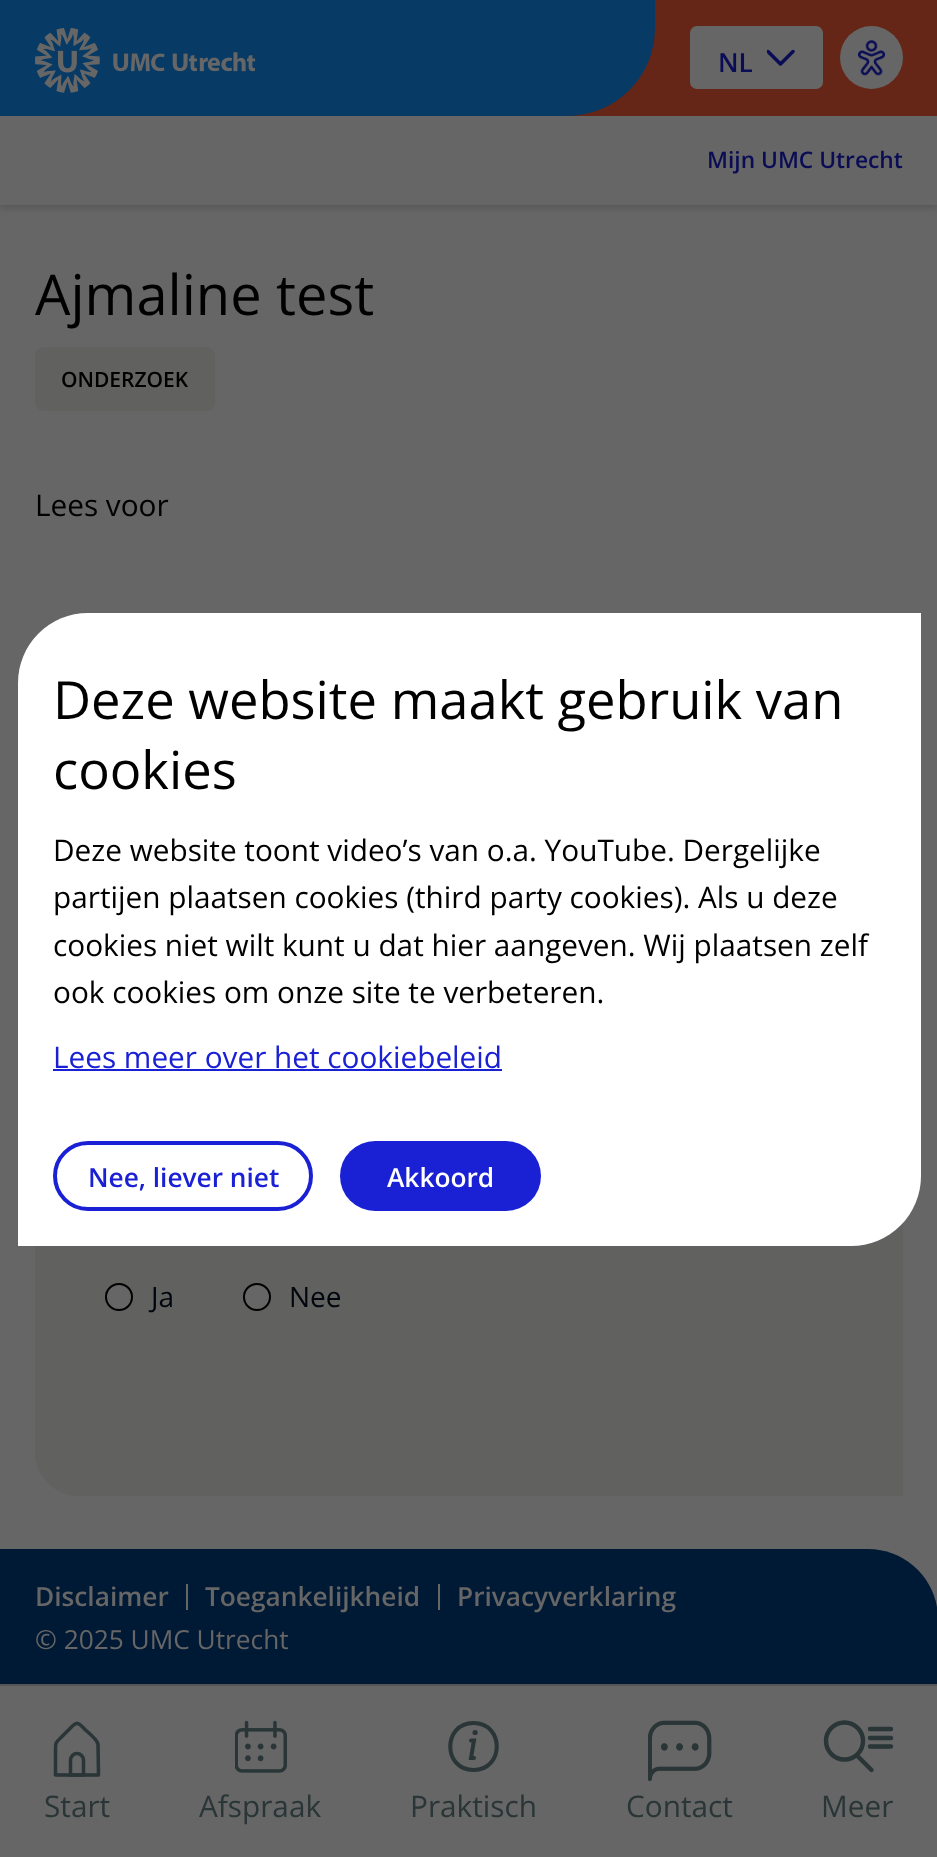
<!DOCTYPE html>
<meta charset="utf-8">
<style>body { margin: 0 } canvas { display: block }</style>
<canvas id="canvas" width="937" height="1857"></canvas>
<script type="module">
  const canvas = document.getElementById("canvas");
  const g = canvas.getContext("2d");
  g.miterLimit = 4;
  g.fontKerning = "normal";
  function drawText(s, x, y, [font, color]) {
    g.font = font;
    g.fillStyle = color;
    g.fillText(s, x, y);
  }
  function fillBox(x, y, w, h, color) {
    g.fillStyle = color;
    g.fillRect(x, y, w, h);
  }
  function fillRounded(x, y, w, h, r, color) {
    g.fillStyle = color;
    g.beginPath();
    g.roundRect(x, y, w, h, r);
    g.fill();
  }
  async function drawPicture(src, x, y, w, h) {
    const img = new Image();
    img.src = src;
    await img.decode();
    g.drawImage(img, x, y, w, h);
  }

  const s1 = ["600 26.25px Open Sans", "#0A0D55"];
  const s2 = ["600 22.75px Open Sans", "#0A0D55"];
  const s3 = ["56px Open Sans", "#000000"];
  const s4 = ["600 21px Open Sans", "#000000"];
  const s5 = ["29.75px Open Sans", "#000000"];
  const s6 = ["28px Open Sans", "#00060D"];
  const s7 = ["52.5px Open Sans", "#000000"];
  const s8 = ["29.75px Open Sans", "#1A21D5"];
  const s9 = ["600 26.25px Open Sans", "#1A21D5"];
  const s10 = ["600 26.25px Open Sans", "#FFFFFF"];
  const s11 = ["600 26.25px Open Sans", "#666666"];
  const s12 = ["26.25px Open Sans", "#666666"];
  const s13 = ["29.75px Open Sans", "#293536"];

  fillBox(0, 0, 937, 1857, "#666666");
  g.fillStyle = "rgba(0, 0, 0, 0.15)";
  g.filter = "blur(3.5px)";
  g.beginPath();
  g.rect(0, 4, 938, 204);
  g.fill();
  g.filter = "none";
  fillBox(568, 0, 369, 116, "#652617");
  g.fillStyle = "#073A64";
  g.beginPath();
  g.roundRect(0, 0, 655, 116, [0, 0, 88, 0]);
  g.fill();
  await drawPicture("pic1.png", 35, 28, 221, 65);
  fillRounded(690, 26, 133, 63, 7, "#666666");
  g.save();
  g.beginPath();
  g.rect(767, 49, 28, 18);
  g.clip();
  g.beginPath();
  g.moveTo(793, 51.5);
  g.lineTo(780.5, 64);
  g.lineTo(768, 51.5);
  g.strokeStyle = "#0A0D55";
  g.lineWidth = 3.5;
  g.lineCap = "round";
  g.lineJoin = "round";
  g.stroke();
  g.restore();
  drawText("NL", 718, 72, s1);
  g.fillStyle = "#666666";
  g.beginPath();
  g.arc(871.5, 57.5, 31.5, 0, Math.PI * 2);
  g.fill();
  await drawPicture("pic2.png", 857, 40, 29, 36);
  fillBox(0, 116, 937, 89, "#666666");
  drawText("Mijn UMC Utrecht", 707, 168, s2);
  drawText("Ajmaline test", 35, 315, s3);
  fillRounded(35, 347, 180, 64, 9, "#616160");
  drawText("ONDERZOEK", 61, 387, s4);
  drawText("Lees voor", 35, 516, s5);
  g.fillStyle = "#616160";
  g.beginPath();
  g.roundRect(35, 1159, 868, 337, [0, 44, 0, 44]);
  g.fill();
  g.fillStyle = "#666666";
  g.beginPath();
  g.arc(119, 1297, 13, 0, Math.PI * 2);
  g.fill();
  g.strokeStyle = "#000000";
  g.lineWidth = 2;
  g.stroke();
  drawText("Ja", 151, 1307, s6);
  g.fillStyle = "#666666";
  g.beginPath();
  g.arc(257, 1297, 13, 0, Math.PI * 2);
  g.fill();
  g.stroke();
  drawText("Nee", 289, 1307, s6);
  g.fillStyle = "#FFFFFF";
  g.beginPath();
  g.roundRect(18, 613, 903, 633, [70, 0, 70, 0]);
  g.fill();
  drawText("Deze website maakt gebruik van", 53, 719, s7);
  drawText("cookies", 53, 789, s7);
  drawText("Deze website toont video’s van o.a. YouTube. Dergelijke", 53, 861, s5);
  drawText("partijen plaatsen cookies (third party cookies). Als u deze", 53, 908, s5);
  drawText("cookies niet wilt kunt u dat hier aangeven. Wij plaatsen zelf", 53, 956, s5);
  drawText("ook cookies om onze site te verbeteren.", 53, 1003, s5);
  drawText("Lees meer over het cookiebeleid", 53, 1068, s8);
  fillBox(53, 1069, 449, 2, "#1A21D5");
  g.beginPath();
  g.roundRect(55, 1143, 256, 66, 33);
  g.strokeStyle = "#1A21D5";
  g.lineWidth = 4;
  g.stroke();
  drawText("Nee, liever niet", 88, 1187, s9);
  fillRounded(340, 1141, 201, 70, 35, "#1A21D5");
  drawText("Akkoord", 387, 1187, s10);
  g.fillStyle = "#001A35";
  g.beginPath();
  g.moveTo(0, 1549);
  g.lineTo(868, 1549);
  g.bezierCurveTo(906.5, 1549, 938, 1580.5, 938, 1619);
  g.lineTo(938, 1689);
  g.lineTo(0, 1689);
  g.closePath();
  g.fill();
  drawText("Disclaimer", 35, 1606, s11);
  fillBox(186, 1584, 2, 26, "#666666");
  drawText("Toegankelijkheid", 205, 1606, s11);
  fillBox(438, 1584, 2, 26, "#666666");
  drawText("Privacyverklaring", 457, 1606, s11);
  drawText("© 2025 UMC Utrecht", 35, 1649, s12);
  fillBox(0, 1686, 937, 3, "#666666");
  fillBox(0, 1684, 937, 2, "#565656");
  g.beginPath();
  g.moveTo(98.5, 1775);
  g.lineTo(55.5, 1775);
  g.lineTo(55.5, 1751);
  g.bezierCurveTo(55.5, 1743.5, 55, 1743, 60.5, 1738);
  g.lineTo(68.5, 1730);
  g.bezierCurveTo(77, 1721, 77, 1721, 85.5, 1730);
  g.bezierCurveTo(89, 1733, 97, 1739.5, 98, 1744);
  g.closePath();
  g.strokeStyle = "#293536";
  g.lineWidth = 3.5;
  g.lineCap = "round";
  g.lineJoin = "round";
  g.stroke();
  g.beginPath();
  g.moveTo(77, 1753.5);
  g.bezierCurveTo(73.5, 1753.5, 70.5, 1756.5, 70.5, 1760);
  g.lineTo(70.5, 1775);
  g.lineTo(83.5, 1775);
  g.lineTo(83.5, 1760);
  g.bezierCurveTo(83.5, 1756.5, 80.5, 1753.5, 77, 1753.5);
  g.closePath();
  g.lineCap = "butt";
  g.lineJoin = "miter";
  g.stroke();
  drawText("Start", 44, 1817, s13);
  await drawPicture("pic3.png", 235, 1720, 52, 53);
  drawText("Afspraak", 199, 1817, s13);
  g.beginPath();
  g.moveTo(473.5, 1770);
  g.bezierCurveTo(442.5, 1770, 442.5, 1723, 473.5, 1723);
  g.bezierCurveTo(504.5, 1723, 504.5, 1770, 473.5, 1770);
  g.closePath();
  g.lineWidth = 4;
  g.stroke();
  g.beginPath();
  g.moveTo(471, 1740.5);
  g.lineTo(474, 1740.5);
  g.lineTo(471, 1758);
  g.lineTo(474, 1758);
  g.lineCap = "round";
  g.stroke();
  g.beginPath();
  g.arc(475.1, 1732.5, 2.6, 0, Math.PI * 2);
  g.fill();
  drawText("Praktisch", 410, 1817, s13);
  await drawPicture("pic4.png", 648, 1720, 64, 61);
  drawText("Contact", 626, 1817, s13);
  g.beginPath();
  g.arc(844.5, 1741, 18.5, 0, Math.PI * 2);
  g.lineWidth = 4.4;
  g.stroke();
  g.beginPath();
  g.moveTo(857.5, 1756);
  g.lineTo(871.5, 1770);
  g.lineJoin = "round";
  g.stroke();
  g.beginPath();
  g.moveTo(870, 1729);
  g.lineTo(891, 1729);
  g.moveTo(870, 1738);
  g.lineTo(891, 1738);
  g.moveTo(870, 1746.5);
  g.lineTo(891, 1746.5);
  g.lineJoin = "miter";
  g.stroke();
  drawText("Meer", 821, 1817, s13);
</script>
